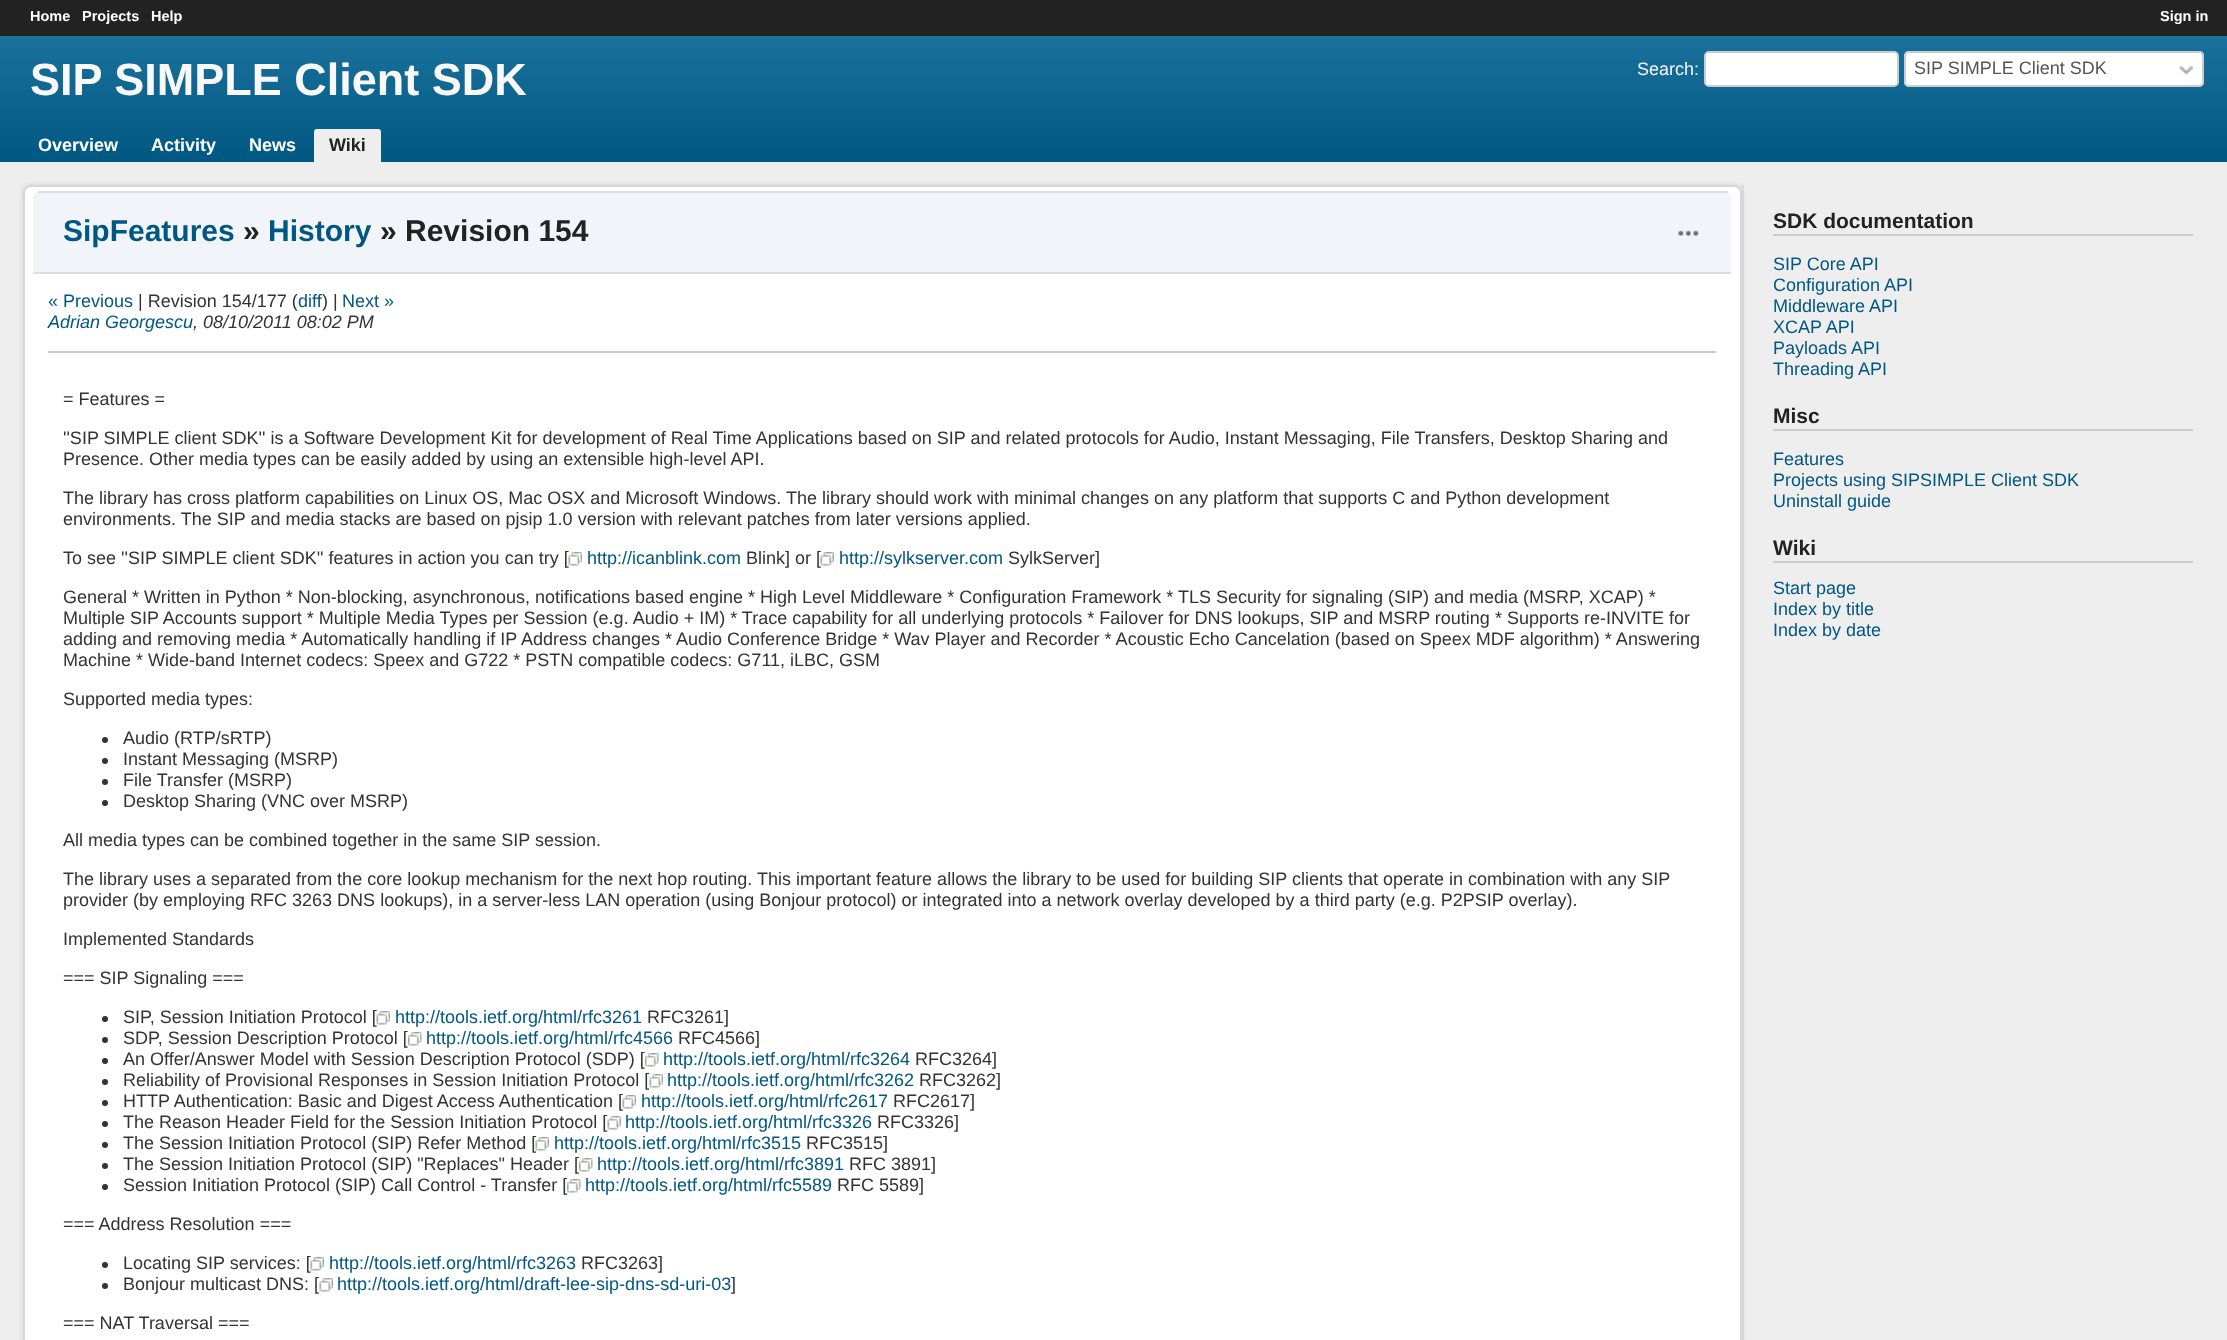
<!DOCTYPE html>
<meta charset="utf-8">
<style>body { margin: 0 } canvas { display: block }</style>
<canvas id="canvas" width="2227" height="1340"></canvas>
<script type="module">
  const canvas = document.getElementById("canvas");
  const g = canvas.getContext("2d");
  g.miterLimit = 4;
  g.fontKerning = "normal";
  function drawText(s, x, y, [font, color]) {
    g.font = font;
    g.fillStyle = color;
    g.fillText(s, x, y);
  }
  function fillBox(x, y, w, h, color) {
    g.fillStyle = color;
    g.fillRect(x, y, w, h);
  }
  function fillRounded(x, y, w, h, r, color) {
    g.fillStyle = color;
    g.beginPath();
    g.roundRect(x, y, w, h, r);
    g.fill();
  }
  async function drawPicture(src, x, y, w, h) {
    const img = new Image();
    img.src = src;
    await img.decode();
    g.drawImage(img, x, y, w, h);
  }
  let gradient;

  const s1 = ["bold 14.5px Liberation Sans", "#FFFFFF"];
  const s2 = ["bold 45px Liberation Sans", "#F8F8F8"];
  const s3 = ["18px Liberation Sans", "#F8F8F8"];
  const s4 = ["18px Liberation Sans", "#555555"];
  const s5 = ["bold 18px Liberation Sans", "#FFFFFF"];
  const s6 = ["bold 18px Liberation Sans", "#222222"];
  const s7 = ["bold 30px Liberation Sans", "#005782"];
  const s8 = ["bold 30px Liberation Sans", "#222222"];
  const s9 = ["18px Liberation Sans", "#005782"];
  const s10 = ["18px Liberation Sans", "#333333"];
  const s11 = ["italic 18px Liberation Sans", "#005782"];
  const s12 = ["italic 18px Liberation Sans", "#333333"];
  const s13 = ["bold 21px Liberation Sans", "#222222"];

  fillBox(0, 0, 2227, 1340, "#EEEEEE");
  fillBox(0, 0, 2227, 36, "#222222");
  drawText("Home", 30, 21, s1);
  drawText("Projects", 82, 21, s1);
  drawText("Help", 151, 21, s1);
  drawText("Sign in", 2160, 21, s1);
  gradient = g.createLinearGradient(0, 36, 0, 162);
  gradient.addColorStop(0, "#1A719C");
  gradient.addColorStop(1, "#005782");
  g.fillStyle = gradient;
  g.fillRect(0, 36, 2227, 126);
  drawText("SIP SIMPLE Client SDK", 30, 95, s2);
  drawText("Search:", 1637, 75, s3);
  g.fillStyle = "#FFFFFF";
  g.beginPath();
  g.roundRect(1705, 52, 193, 34, 4);
  g.fill();
  g.strokeStyle = "#CCCCCC";
  g.lineWidth = 2;
  g.stroke();
  fillRounded(1904, 51, 300, 36, 5, "#FFFFFF");
  await drawPicture("pic1.png", 2179, 65, 14, 11);
  g.beginPath();
  g.roundRect(1905, 52, 298, 34, 4);
  g.stroke();
  drawText("SIP SIMPLE Client SDK", 1914, 74, s4);
  drawText("Overview", 38, 151, s5);
  drawText("Activity", 151, 151, s5);
  drawText("News", 249, 151, s5);
  g.fillStyle = "#EEEEEE";
  g.beginPath();
  g.roundRect(314, 129, 67, 33, [3, 3, 0, 0]);
  g.fill();
  drawText("Wiki", 329, 151, s6);
  fillBox(1742, 185, 2, 1155, "#DDDDDD");
  g.fillStyle = "#CCCCCC";
  g.filter = "blur(2px)";
  g.beginPath();
  g.roundRect(23, 185, 1719, 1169, 8);
  g.fill();
  g.filter = "none";
  g.fillStyle = "#FFFFFF";
  g.beginPath();
  g.roundRect(24, 186, 1717, 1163, 7);
  g.fill();
  g.strokeStyle = "#D7D7D7";
  g.stroke();
  g.fillStyle = "#F1F5FA";
  g.beginPath();
  g.roundRect(33, 191, 1698, 82, [8, 8, 0, 0]);
  g.fill();
  fillBox(38, 191, 1690, 2, "#DADEE5");
  fillBox(33, 272, 1698, 2, "#DADEE5");
  drawText("SipFeatures", 63, 241, s7);
  drawText("»", 243, 241, s8);
  drawText("History", 268, 241, s7);
  drawText("» Revision 154", 380, 241, s8);
  await drawPicture("pic2.png", 1678, 230, 21, 6);
  drawText("« Previous", 48, 307, s9);
  drawText("| Revision 154/177 (", 138, 307, s10);
  drawText("diff", 298, 307, s9);
  drawText(") |", 322, 307, s10);
  drawText("Next »", 342, 307, s9);
  drawText("Adrian Georgescu", 48, 328, s11);
  drawText(", 08/10/2011 08:02 PM", 193, 328, s12);
  fillBox(48, 351, 1668, 2, "#CCCCCC");
  drawText("= Features =", 63, 405, s10);
  drawText("''SIP SIMPLE client SDK'' is a Software Development Kit for development of Real Time Applications based on SIP and related protocols for Audio, Instant Messaging, File Transfers, Desktop Sharing and", 63, 444, s10);
  drawText("Presence. Other media types can be easily added by using an extensible high-level API.", 63, 465, s10);
  drawText("The library has cross platform capabilities on Linux OS, Mac OSX and Microsoft Windows. The library should work with minimal changes on any platform that supports C and Python development", 63, 504, s10);
  drawText("environments. The SIP and media stacks are based on pjsip 1.0 version with relevant patches from later versions applied.", 63, 525, s10);
  drawText("To see ''SIP SIMPLE client SDK'' features in action you can try [", 63, 564, s10);
  await drawPicture("pic3.png", 568, 552, 14, 14);
  drawText("http://icanblink.com", 587, 564, s9);
  drawText("Blink] or [", 746, 564, s10);
  await drawPicture("pic4.png", 820, 552, 14, 14);
  drawText("http://sylkserver.com", 839, 564, s9);
  drawText("SylkServer]", 1008, 564, s10);
  drawText("General * Written in Python * Non-blocking, asynchronous, notifications based engine * High Level Middleware * Configuration Framework * TLS Security for signaling (SIP) and media (MSRP, XCAP) *", 63, 603, s10);
  drawText("Multiple SIP Accounts support * Multiple Media Types per Session (e.g. Audio + IM) * Trace capability for all underlying protocols * Failover for DNS lookups, SIP and MSRP routing * Supports re-INVITE for", 63, 624, s10);
  drawText("adding and removing media * Automatically handling if IP Address changes * Audio Conference Bridge * Wav Player and Recorder * Acoustic Echo Cancelation (based on Speex MDF algorithm) * Answering", 63, 645, s10);
  drawText("Machine * Wide-band Internet codecs: Speex and G722 * PSTN compatible codecs: G711, iLBC, GSM", 63, 666, s10);
  drawText("Supported media types:", 63, 705, s10);
  g.beginPath();
  g.arc(105, 740, 3, 0, Math.PI * 2);
  g.fill();
  drawText("Audio (RTP/sRTP)", 123, 744, s10);
  g.beginPath();
  g.arc(105, 761, 3, 0, Math.PI * 2);
  g.fill();
  drawText("Instant Messaging (MSRP)", 123, 765, s10);
  g.beginPath();
  g.arc(105, 782, 3, 0, Math.PI * 2);
  g.fill();
  drawText("File Transfer (MSRP)", 123, 786, s10);
  g.beginPath();
  g.arc(105, 803, 3, 0, Math.PI * 2);
  g.fill();
  drawText("Desktop Sharing (VNC over MSRP)", 123, 807, s10);
  drawText("All media types can be combined together in the same SIP session.", 63, 846, s10);
  drawText("The library uses a separated from the core lookup mechanism for the next hop routing. This important feature allows the library to be used for building SIP clients that operate in combination with any SIP", 63, 885, s10);
  drawText("provider (by employing RFC 3263 DNS lookups), in a server-less LAN operation (using Bonjour protocol) or integrated into a network overlay developed by a third party (e.g. P2PSIP overlay).", 63, 906, s10);
  drawText("Implemented Standards", 63, 945, s10);
  drawText("=== SIP Signaling ===", 63, 984, s10);
  g.beginPath();
  g.arc(105, 1019, 3, 0, Math.PI * 2);
  g.fill();
  drawText("SIP, Session Initiation Protocol [", 123, 1023, s10);
  await drawPicture("pic5.png", 376, 1011, 14, 14);
  drawText("http://tools.ietf.org/html/rfc3261", 395, 1023, s9);
  drawText("RFC3261]", 647, 1023, s10);
  g.beginPath();
  g.arc(105, 1040, 3, 0, Math.PI * 2);
  g.fill();
  drawText("SDP, Session Description Protocol [", 123, 1044, s10);
  await drawPicture("pic6.png", 408, 1032, 14, 14);
  drawText("http://tools.ietf.org/html/rfc4566", 426, 1044, s9);
  drawText("RFC4566]", 678, 1044, s10);
  g.beginPath();
  g.arc(105, 1061, 3, 0, Math.PI * 2);
  g.fill();
  drawText("An Offer/Answer Model with Session Description Protocol (SDP) [", 123, 1065, s10);
  await drawPicture("pic7.png", 645, 1053, 14, 14);
  drawText("http://tools.ietf.org/html/rfc3264", 663, 1065, s9);
  drawText("RFC3264]", 915, 1065, s10);
  g.beginPath();
  g.arc(105, 1082, 3, 0, Math.PI * 2);
  g.fill();
  drawText("Reliability of Provisional Responses in Session Initiation Protocol [", 123, 1086, s10);
  await drawPicture("pic8.png", 649, 1074, 14, 14);
  drawText("http://tools.ietf.org/html/rfc3262", 667, 1086, s9);
  drawText("RFC3262]", 919, 1086, s10);
  g.beginPath();
  g.arc(105, 1103, 3, 0, Math.PI * 2);
  g.fill();
  drawText("HTTP Authentication: Basic and Digest Access Authentication [", 123, 1107, s10);
  await drawPicture("pic9.png", 622, 1095, 14, 14);
  drawText("http://tools.ietf.org/html/rfc2617", 641, 1107, s9);
  drawText("RFC2617]", 893, 1107, s10);
  g.beginPath();
  g.arc(105, 1124, 3, 0, Math.PI * 2);
  g.fill();
  drawText("The Reason Header Field for the Session Initiation Protocol [", 123, 1128, s10);
  await drawPicture("pic8.png", 607, 1116, 14, 14);
  drawText("http://tools.ietf.org/html/rfc3326", 625, 1128, s9);
  drawText("RFC3326]", 877, 1128, s10);
  g.beginPath();
  g.arc(105, 1145, 3, 0, Math.PI * 2);
  g.fill();
  drawText("The Session Initiation Protocol (SIP) Refer Method [", 123, 1149, s10);
  await drawPicture("pic10.png", 535, 1137, 14, 14);
  drawText("http://tools.ietf.org/html/rfc3515", 554, 1149, s9);
  drawText("RFC3515]", 806, 1149, s10);
  g.beginPath();
  g.arc(105, 1166, 3, 0, Math.PI * 2);
  g.fill();
  drawText("The Session Initiation Protocol (SIP) \"Replaces\" Header [", 123, 1170, s10);
  await drawPicture("pic6.png", 579, 1158, 14, 14);
  drawText("http://tools.ietf.org/html/rfc3891", 597, 1170, s9);
  drawText("RFC 3891]", 849, 1170, s10);
  g.beginPath();
  g.arc(105, 1187, 3, 0, Math.PI * 2);
  g.fill();
  drawText("Session Initiation Protocol (SIP) Call Control - Transfer [", 123, 1191, s10);
  await drawPicture("pic11.png", 567, 1179, 14, 14);
  drawText("http://tools.ietf.org/html/rfc5589", 585, 1191, s9);
  drawText("RFC 5589]", 837, 1191, s10);
  drawText("=== Address Resolution ===", 63, 1230, s10);
  g.beginPath();
  g.arc(105, 1265, 3, 0, Math.PI * 2);
  g.fill();
  drawText("Locating SIP services: [", 123, 1269, s10);
  await drawPicture("pic4.png", 310, 1257, 14, 14);
  drawText("http://tools.ietf.org/html/rfc3263", 329, 1269, s9);
  drawText("RFC3263]", 581, 1269, s10);
  g.beginPath();
  g.arc(105, 1286, 3, 0, Math.PI * 2);
  g.fill();
  drawText("Bonjour multicast DNS: [", 123, 1290, s10);
  await drawPicture("pic12.png", 319, 1278, 14, 14);
  drawText("http://tools.ietf.org/html/draft-lee-sip-dns-sd-uri-03", 337, 1290, s9);
  drawText("]", 731, 1290, s10);
  drawText("=== NAT Traversal ===", 63, 1329, s10);
  fillBox(1773, 234, 420, 2, "#CCCCCC");
  drawText("SDK documentation", 1773, 228, s13);
  drawText("SIP Core API", 1773, 270, s9);
  drawText("Configuration API", 1773, 291, s9);
  drawText("Middleware API", 1773, 312, s9);
  drawText("XCAP API", 1773, 333, s9);
  drawText("Payloads API", 1773, 354, s9);
  drawText("Threading API", 1773, 375, s9);
  fillBox(1773, 429, 420, 2, "#CCCCCC");
  drawText("Misc", 1773, 423, s13);
  drawText("Features", 1773, 465, s9);
  drawText("Projects using SIPSIMPLE Client SDK", 1773, 486, s9);
  drawText("Uninstall guide", 1773, 507, s9);
  fillBox(1773, 561, 420, 2, "#CCCCCC");
  drawText("Wiki", 1773, 555, s13);
  drawText("Start page", 1773, 594, s9);
  drawText("Index by title", 1773, 615, s9);
  drawText("Index by date", 1773, 636, s9);
</script>
